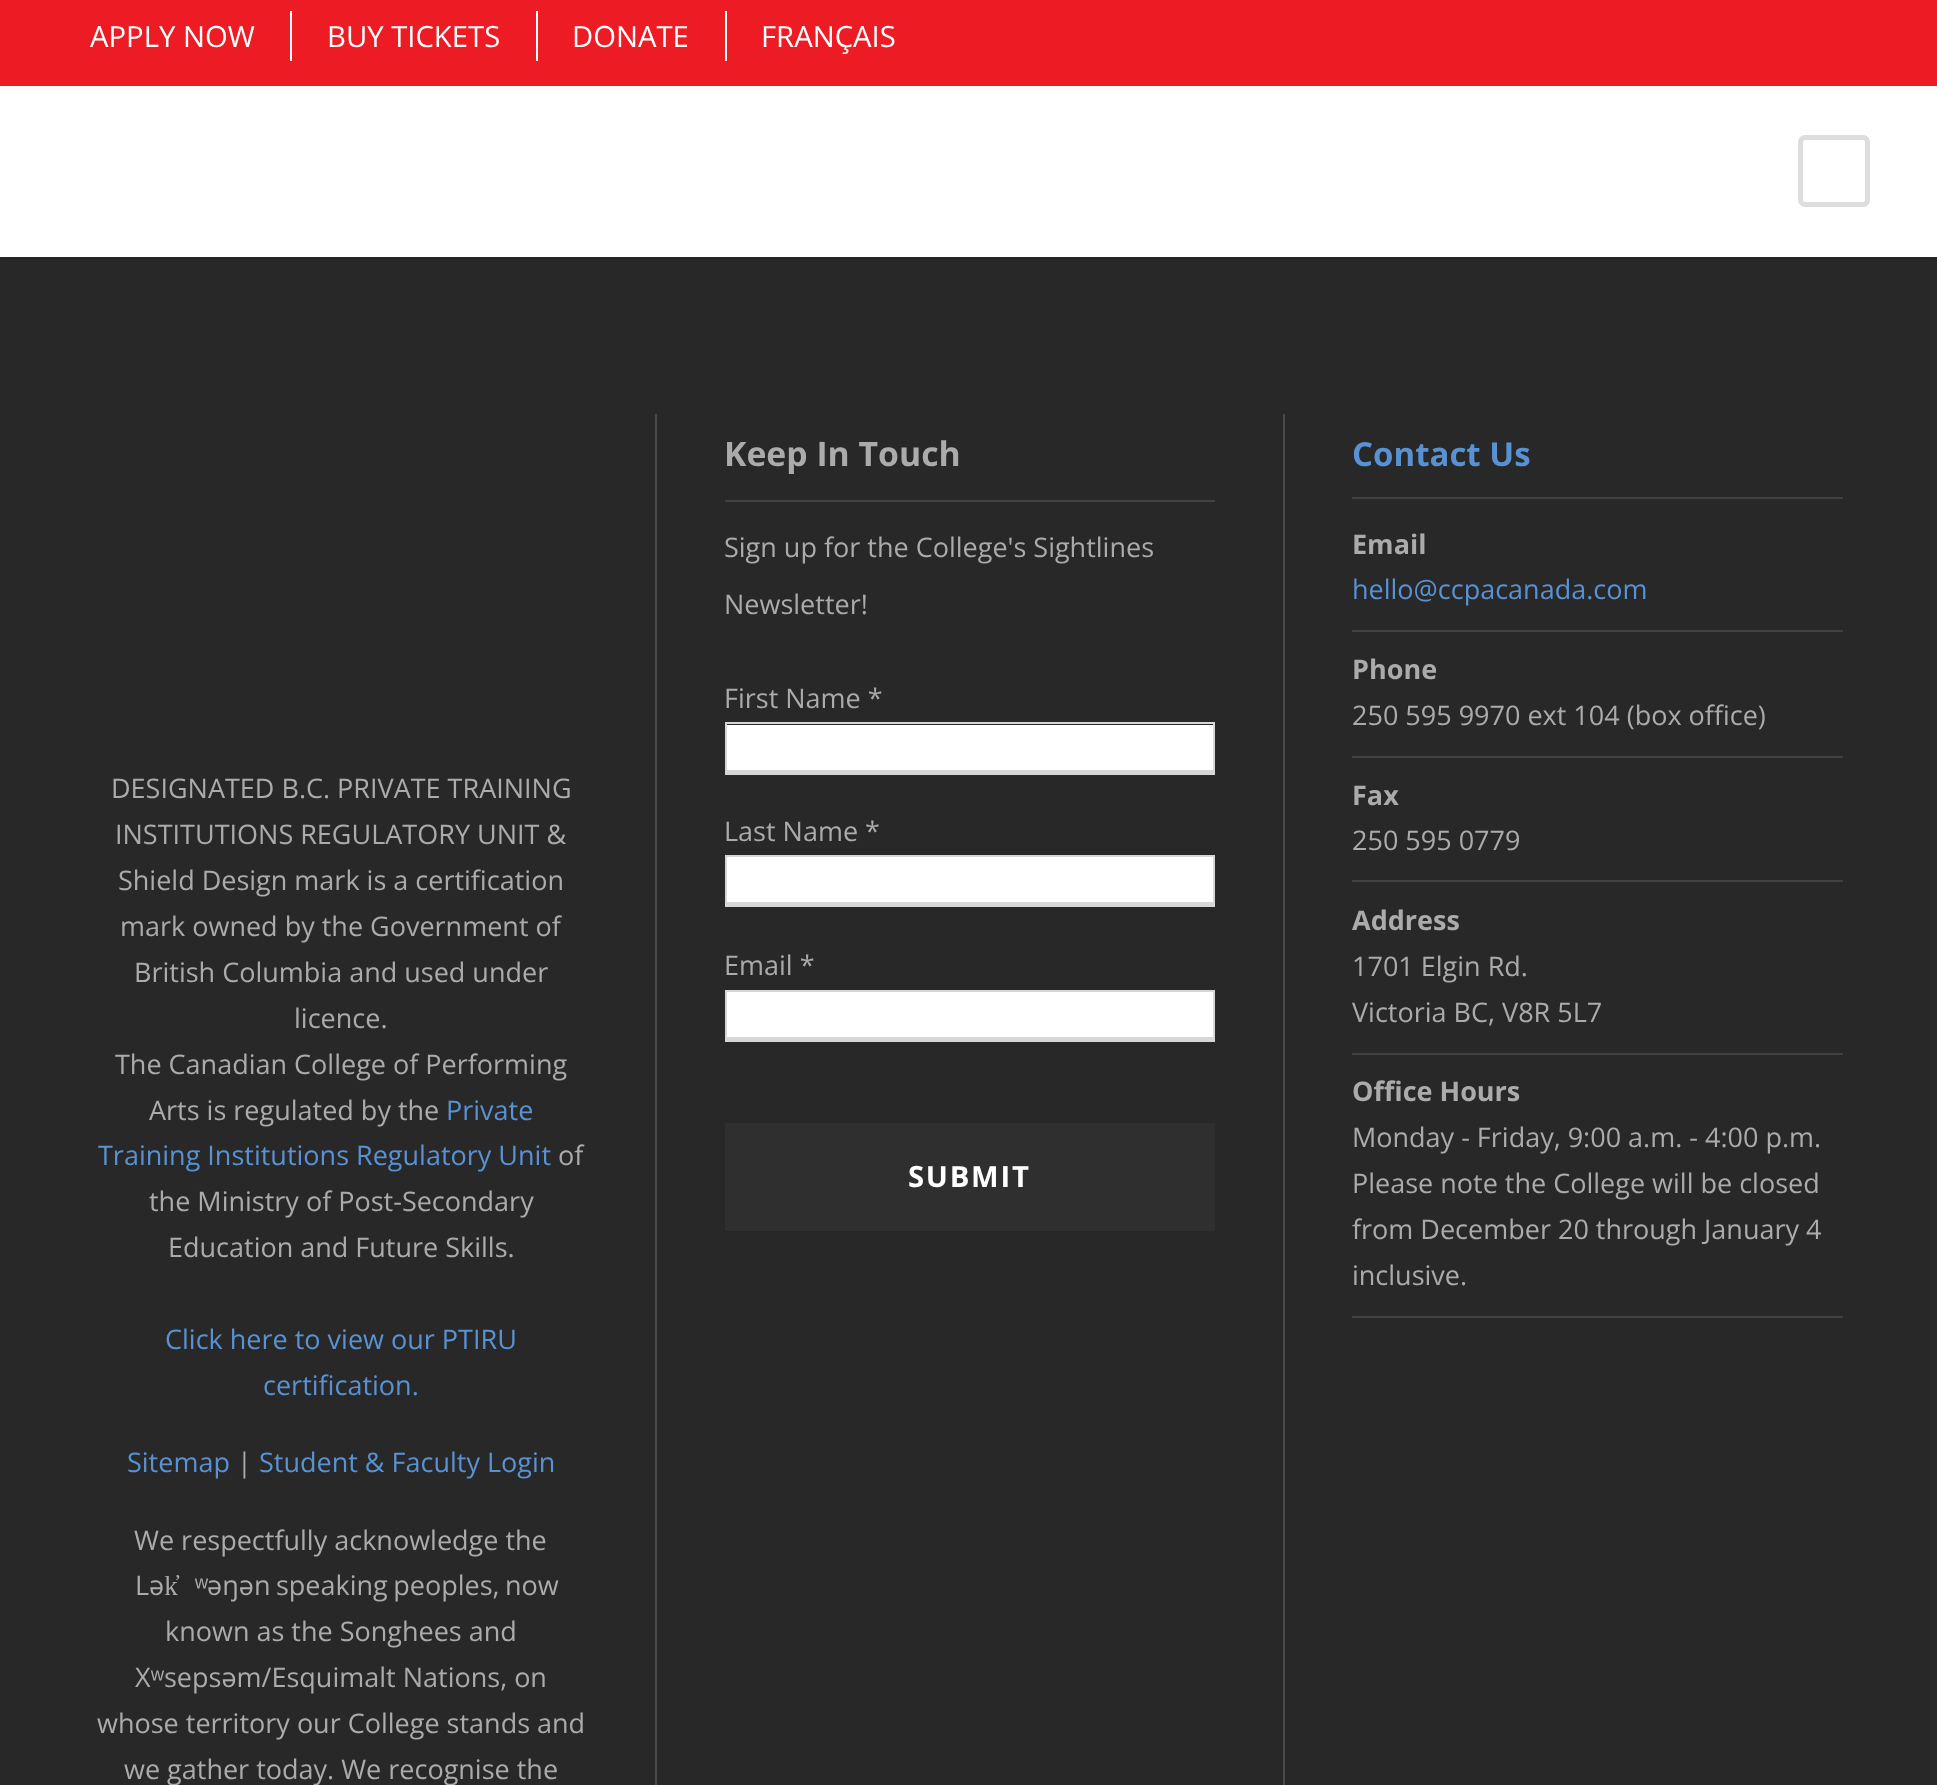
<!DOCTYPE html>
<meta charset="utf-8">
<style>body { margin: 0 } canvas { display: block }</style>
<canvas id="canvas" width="1937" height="1785"></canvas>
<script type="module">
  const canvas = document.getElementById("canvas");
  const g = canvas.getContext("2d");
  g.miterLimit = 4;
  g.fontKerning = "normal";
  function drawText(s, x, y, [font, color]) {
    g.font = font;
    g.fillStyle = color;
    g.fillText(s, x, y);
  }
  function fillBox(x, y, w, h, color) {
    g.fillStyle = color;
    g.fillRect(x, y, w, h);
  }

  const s1 = ["29.25px Open Sans", "#FFFFFF"];
  const s2 = ["27px Open Sans", "#ABABAB"];
  const s3 = ["27px Open Sans", "#5892D3"];
  const s4 = ["27px Liberation Sans", "#ABABAB"];
  const s5 = ["bold 33.75px Open Sans", "#ABABAB"];
  const s6 = ["bold 29.25px Open Sans", "#FFFFFF"];
  const s7 = ["bold 33px Open Sans", "#5892D3"];
  const s8 = ["bold 27px Open Sans", "#ABABAB"];

  fillBox(0, 0, 1937, 1785, "#FFFFFF");
  fillBox(0, 0, 1937, 86, "#ED1C24");
  fillBox(290, 11, 2, 50, "#FFFFFF");
  drawText("APPLY NOW", 90, 47, s1);
  fillBox(536, 11, 2, 50, "#FFFFFF");
  drawText("BUY TICKETS", 327, 47, s1);
  fillBox(725, 11, 2, 50, "#FFFFFF");
  drawText("DONATE", 572, 47, s1);
  drawText("FRANÇAIS", 761, 47, s1);
  fillBox(0, 257, 1937, 1528, "#282828");
  g.fillStyle = "rgba(0, 0, 0, 0.1)";
  g.filter = "blur(2px)";
  g.beginPath();
  g.rect(0, 90, 1937, 169);
  g.fill();
  g.filter = "none";
  fillBox(0, 88, 1937, 169, "#FFFFFF");
  g.beginPath();
  g.roundRect(1800.5, 137.5, 67, 67, 4.5);
  g.strokeStyle = "#DDDDDD";
  g.lineWidth = 5;
  g.stroke();
  drawText("DESIGNATED B.C. PRIVATE TRAINING", 111, 798, s2);
  drawText("INSTITUTIONS REGULATORY UNIT &", 115, 844, s2);
  drawText("Shield Design mark is a certification", 118, 890, s2);
  drawText("mark owned by the Government of", 120, 936, s2);
  drawText("British Columbia and used under", 134, 982, s2);
  drawText("licence.", 294, 1028, s2);
  drawText("The Canadian College of Performing", 115, 1074, s2);
  drawText("Arts is regulated by the", 149, 1120, s2);
  drawText("Private", 446, 1120, s3);
  drawText("Training Institutions Regulatory Unit", 98, 1165, s3);
  drawText("of", 558, 1165, s2);
  drawText("the Ministry of Post-Secondary", 149, 1211, s2);
  drawText("Education and Future Skills.", 168, 1257, s2);
  drawText("Click here to view our PTIRU", 165, 1349, s3);
  drawText("certification.", 263, 1395, s3);
  drawText("Sitemap", 127, 1472, s3);
  drawText("|", 237, 1472, s2);
  drawText("Student & Faculty Login", 259, 1472, s3);
  drawText("We respectfully acknowledge the", 134, 1550, s2);
  drawText("Lək̓", 135, 1595, s2);
  drawText("ʷ", 195, 1595, s4);
  g.wordSpacing = "-1.5px";
  drawText("əŋən speaking peoples, now", 207, 1595, s2);
  g.wordSpacing = "0px";
  drawText("known as the Songhees and", 165, 1641, s2);
  drawText("X", 135, 1687, s2);
  drawText("ʷ", 151, 1687, s4);
  drawText("sepsəm/Esquimalt Nations, on", 164, 1687, s2);
  drawText("whose territory our College stands and", 97, 1733, s2);
  drawText("we gather today. We recognise the", 124, 1779, s2);
  fillBox(655, 414, 2, 1371, "#494949");
  drawText("Keep In Touch", 724, 466, s5);
  fillBox(725, 500, 490, 2, "#414142");
  drawText("Sign up for the College's Sightlines", 724, 557, s2);
  drawText("Newsletter!", 724, 614, s2);
  drawText("First Name *", 724, 708, s2);
  fillBox(727, 725, 486, 45, "#FFFFFF");
  fillBox(725, 722, 490, 2, "#D7D7D7");
  fillBox(1213, 722, 2, 52, "#D7D7D7");
  fillBox(725, 770, 490, 5, "#D7D7D7");
  fillBox(725, 722, 2, 52, "#D7D7D7");
  drawText("Last Name *", 724, 841, s2);
  fillBox(727, 857, 486, 45, "#FFFFFF");
  fillBox(725, 855, 490, 2, "#D7D7D7");
  fillBox(1213, 855, 2, 52, "#D7D7D7");
  fillBox(725, 902, 490, 5, "#D7D7D7");
  fillBox(725, 855, 2, 52, "#D7D7D7");
  drawText("Email *", 724, 975, s2);
  fillBox(727, 992, 486, 45, "#FFFFFF");
  fillBox(725, 990, 490, 2, "#D7D7D7");
  fillBox(1213, 990, 2, 52, "#D7D7D7");
  fillBox(725, 1037, 490, 5, "#D7D7D7");
  fillBox(725, 990, 2, 52, "#D7D7D7");
  fillBox(725, 1123, 490, 108, "#2F2F2F");
  g.letterSpacing = "1.75px";
  drawText("SUBMIT", 908, 1187, s6);
  fillBox(1283, 414, 2, 1371, "#494949");
  g.letterSpacing = "0px";
  drawText("Contact Us", 1352, 466, s7);
  fillBox(1352, 497, 491, 2, "#414142");
  drawText("Email", 1352, 554, s8);
  drawText("hello@ccpacanada.com", 1352, 599, s3);
  fillBox(1352, 630, 491, 2, "#414142");
  drawText("Phone", 1352, 679, s8);
  drawText("250 595 9970 ext 104 (box office)", 1352, 725, s2);
  fillBox(1352, 756, 491, 2, "#414142");
  drawText("Fax", 1352, 805, s8);
  drawText("250 595 0779", 1352, 850, s2);
  fillBox(1352, 880, 491, 2, "#414142");
  drawText("Address", 1352, 930, s8);
  drawText("1701 Elgin Rd.", 1352, 976, s2);
  drawText("Victoria BC, V8R 5L7", 1352, 1022, s2);
  fillBox(1352, 1053, 491, 2, "#414142");
  drawText("Office Hours", 1352, 1101, s8);
  drawText("Monday - Friday, 9:00 a.m. - 4:00 p.m.", 1352, 1147, s2);
  drawText("Please note the College will be closed", 1352, 1193, s2);
  drawText("from December 20 through January 4", 1352, 1239, s2);
  drawText("inclusive.", 1352, 1285, s2);
  fillBox(1352, 1316, 491, 2, "#414142");
</script>
